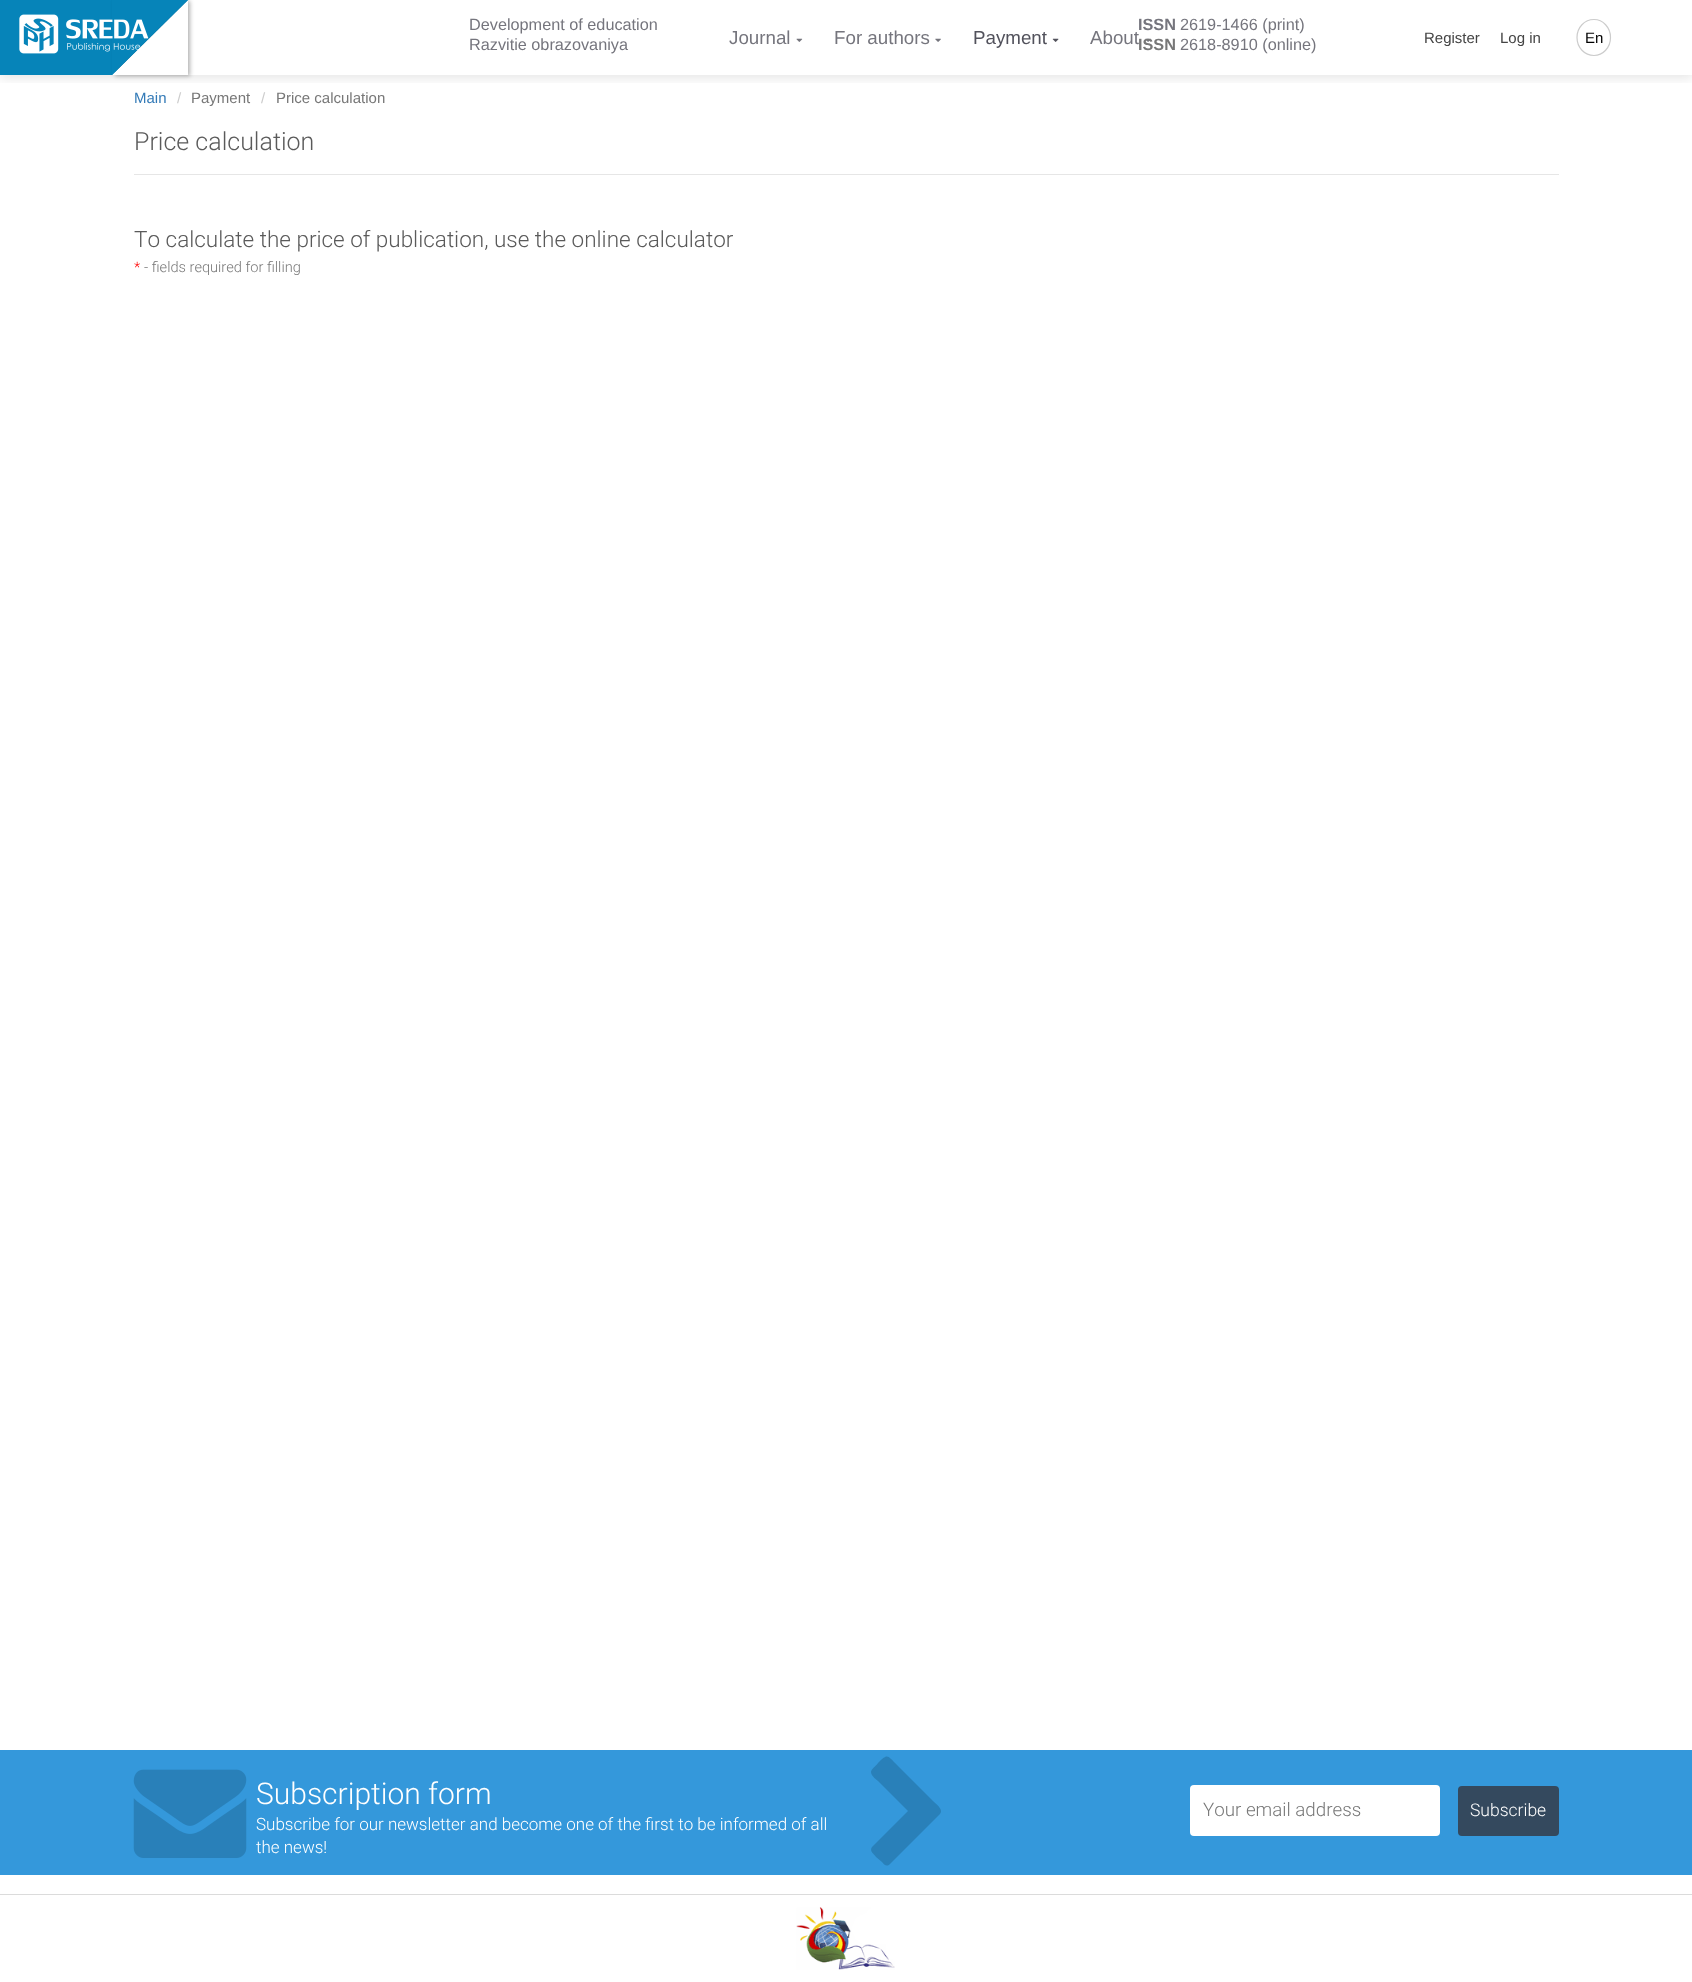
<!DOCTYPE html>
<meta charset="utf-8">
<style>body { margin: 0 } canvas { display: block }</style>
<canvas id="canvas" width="1692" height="1982"></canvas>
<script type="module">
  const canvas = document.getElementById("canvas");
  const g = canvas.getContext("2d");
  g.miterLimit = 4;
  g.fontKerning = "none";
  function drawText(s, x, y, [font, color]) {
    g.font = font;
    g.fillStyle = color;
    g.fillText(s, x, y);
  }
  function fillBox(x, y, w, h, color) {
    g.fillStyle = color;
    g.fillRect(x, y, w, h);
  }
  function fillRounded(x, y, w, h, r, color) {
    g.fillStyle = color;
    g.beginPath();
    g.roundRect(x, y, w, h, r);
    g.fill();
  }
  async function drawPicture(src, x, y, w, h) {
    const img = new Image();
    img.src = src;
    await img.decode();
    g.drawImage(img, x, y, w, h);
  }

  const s1 = ["16.25px Liberation Sans", "#75757D"];
  const s2 = ["18.75px Liberation Sans", "#75757D"];
  const s3 = ["18.75px Liberation Sans", "#52525C"];
  const s4 = ["bold 16.25px Liberation Sans", "#75757D"];
  const s5 = ["bold 16.25px Liberation Sans", "#777777"];
  const s6 = ["15px Liberation Sans", "#444444"];
  const s7 = ["15px Liberation Sans", "#000000"];
  const s8 = ["15px Liberation Sans", "#337AB7"];
  const s9 = ["15px Liberation Sans", "#CCCCCC"];
  const s10 = ["15px Liberation Sans", "#777777"];
  const s11 = ["300 25px Roboto", "#5A5A5A"];
  const s12 = ["300 22.5px Roboto", "#5A5A5A"];
  const s13 = ["300 14.6px Roboto", "#FF0000"];
  const s14 = ["300 14.6px Roboto", "#777777"];
  const s15 = ["300 30px Roboto", "#FFFFFF"];
  const s16 = ["300 17px Roboto", "#FFFFFF"];
  const s17 = ["300 18.75px Roboto", "#777777"];
  const s18 = ["300 17.5px Roboto", "#FFFFFF"];

  fillBox(0, 0, 1692, 1982, "#FFFFFF");
  g.save();
  g.beginPath();
  g.rect(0, 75, 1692, 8);
  g.clip();
  g.fillStyle = "rgba(0, 0, 0, 0.1)";
  g.filter = "blur(6px)";
  g.beginPath();
  g.rect(0, 3, 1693, 75);
  g.fill();
  g.filter = "none";
  g.restore();
  fillBox(0, 0, 188, 75, "#0684B9");
  g.fillStyle = "rgba(0, 0, 0, 0.3)";
  g.filter = "blur(2px)";
  g.beginPath();
  g.rect(115, 1, 75, 75);
  g.fill();
  g.filter = "none";
  g.fillStyle = "#FFFFFF";
  g.beginPath();
  g.moveTo(188, 75);
  g.lineTo(112, 75);
  g.lineTo(188, 0);
  g.closePath();
  g.fill();
  g.fillStyle = "#0684B9";
  g.beginPath();
  g.moveTo(112, 75);
  g.lineTo(112, 0);
  g.lineTo(188, 0);
  g.closePath();
  g.fill();
  await drawPicture("pic1.png", 19, 14, 130, 40);
  drawText("Development of education", 469, 30, s1);
  drawText("Razvitie obrazovaniya", 469, 50, s1);
  drawText("Journal", 729, 44, s2);
  await drawPicture("pic2.png", 796, 38, 7, 4);
  drawText("For authors", 834, 44, s2);
  await drawPicture("pic3.png", 935, 38, 6, 4);
  drawText("Payment", 973, 44, s3);
  await drawPicture("pic4.png", 1052, 38, 7, 4);
  drawText("About", 1090, 44, s2);
  await drawPicture("pic3.png", 1145, 38, 6, 4);
  drawText("ISSN", 1138, 30, s4);
  drawText("2619-1466 (print)", 1180, 30, s1);
  drawText("ISSN", 1138, 50, s5);
  drawText("2618-8910 (online)", 1180, 50, s1);
  drawText("Register", 1424, 43, s6);
  drawText("Log in", 1500, 43, s6);
  g.beginPath();
  g.moveTo(1594, 19.5);
  g.bezierCurveTo(1603, 19.5, 1610.5, 27.5, 1610.5, 37.5);
  g.bezierCurveTo(1610.5, 47.5, 1603, 55.5, 1594, 55.5);
  g.bezierCurveTo(1584.5, 55.5, 1577, 47.5, 1577, 37.5);
  g.bezierCurveTo(1577, 27.5, 1584.5, 19.5, 1594, 19.5);
  g.closePath();
  g.strokeStyle = "#CCCCCC";
  g.lineWidth = 1.2;
  g.stroke();
  drawText("En", 1585, 43, s7);
  drawText("Main", 134, 103, s8);
  drawText("/", 177, 103, s9);
  drawText("Payment", 191, 103, s10);
  drawText("/", 261, 103, s9);
  drawText("Price calculation", 276, 103, s10);
  fillBox(134, 174, 1425, 1, "#E6E6E6");
  drawText("Price calculation", 134, 150, s11);
  drawText("To calculate the price of publication, use the online calculator", 134, 247, s12);
  drawText("*", 134, 272, s13);
  drawText("- fields required for filling", 144, 272, s14);
  fillBox(0, 1750, 1692, 125, "#3498DB");
  await drawPicture("pic5.png", 133, 1769, 114, 89);
  drawText("Subscription form", 256, 1804, s15);
  drawText("Subscribe for our newsletter and become one of the first to be informed of all", 256, 1830, s16);
  drawText("the news!", 256, 1853, s16);
  g.fillStyle = "#2980B9";
  g.beginPath();
  g.moveTo(940, 1814);
  g.lineTo(890, 1864);
  g.bezierCurveTo(887, 1867, 884, 1865, 882, 1862);
  g.lineTo(876, 1857);
  g.bezierCurveTo(874, 1854, 869, 1851, 872, 1847);
  g.lineTo(908, 1811);
  g.lineTo(878, 1781);
  g.bezierCurveTo(877, 1780, 871, 1776, 871, 1772);
  g.bezierCurveTo(871, 1769, 876, 1766, 878, 1763);
  g.bezierCurveTo(888, 1753, 887, 1755, 898, 1766);
  g.lineTo(932, 1800);
  g.bezierCurveTo(932, 1801, 942, 1807, 941, 1812);
  g.closePath();
  g.fill();
  fillRounded(1190, 1785, 250, 51, 4, "#FFFFFF");
  drawText("Your email address", 1203, 1816, s17);
  fillRounded(1458, 1786, 101, 50, 4, "#34495E");
  drawText("Subscribe", 1470, 1816, s18);
  fillBox(0, 1894, 1692, 1, "#DBDBDB");
  await drawPicture("pic6.png", 796, 1907, 99, 63);
</script>
